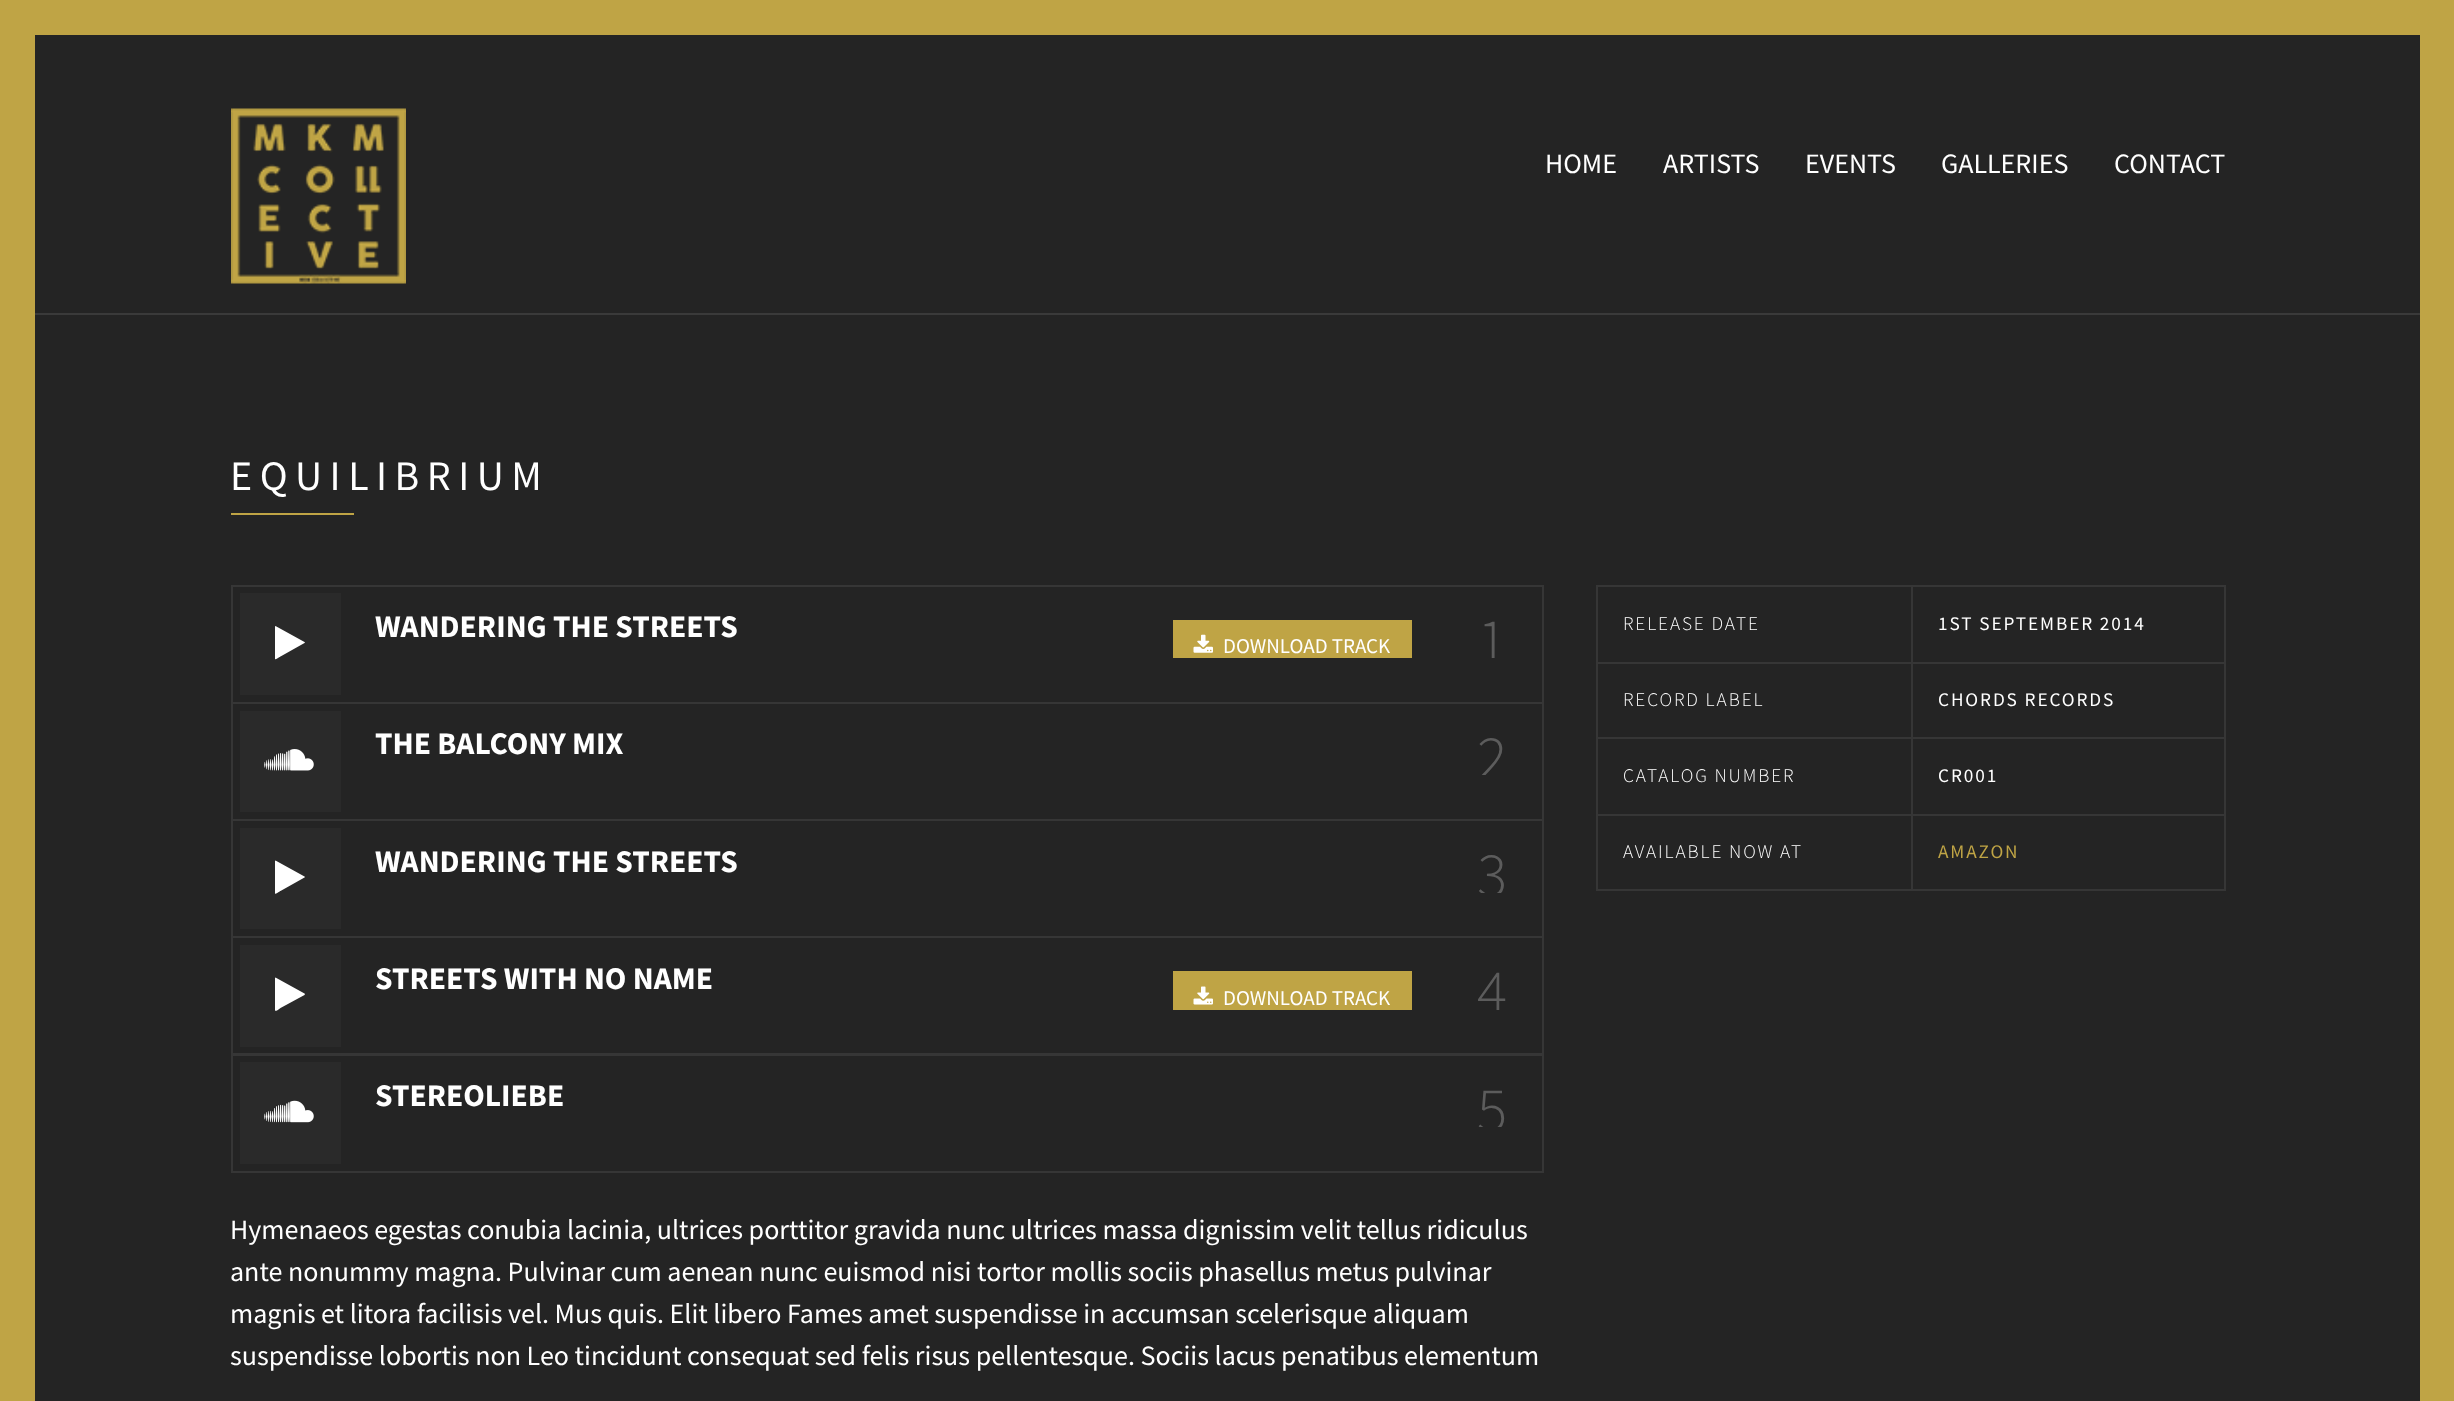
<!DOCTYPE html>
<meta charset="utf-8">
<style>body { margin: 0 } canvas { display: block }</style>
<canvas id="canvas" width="2454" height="1401"></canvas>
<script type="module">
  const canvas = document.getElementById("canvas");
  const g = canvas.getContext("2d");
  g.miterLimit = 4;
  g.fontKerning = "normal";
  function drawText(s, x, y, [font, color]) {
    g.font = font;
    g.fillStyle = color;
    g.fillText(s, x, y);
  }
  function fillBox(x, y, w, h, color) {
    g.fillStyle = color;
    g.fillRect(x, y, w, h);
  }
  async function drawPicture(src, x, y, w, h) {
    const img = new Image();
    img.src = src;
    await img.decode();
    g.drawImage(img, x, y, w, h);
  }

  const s1 = ["28px Source Sans Pro", "#FFFFFF"];
  const s2 = ["42px Source Sans Pro", "#FFFFFF"];
  const s3 = ["bold 31.5px Source Sans Pro", "#FFFFFF"];
  const s4 = ["21px Source Sans Pro", "#FFFFFF"];
  const s5 = ["300 63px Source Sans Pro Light", "#5C5C5C"];
  const s6 = ["300 19.25px Source Sans Pro Light", "#FFFFFF"];
  const s7 = ["19.25px Source Sans Pro", "#FFFFFF"];
  const s8 = ["19.25px Source Sans Pro", "#BFA445"];

  fillBox(0, 0, 2454, 1401, "#242424");
  g.strokeStyle = "#BFA445";
  g.lineWidth = 35;
  g.strokeRect(17.5, 17.5, 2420, 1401);
  fillBox(35, 313, 2385, 2, "#3A3A3A");
  await drawPicture("pic1.png", 231, 108, 175, 176);
  drawText("HOME", 1545, 173, s1);
  drawText("ARTISTS", 1663, 173, s1);
  drawText("EVENTS", 1805, 173, s1);
  drawText("GALLERIES", 1941, 173, s1);
  drawText("CONTACT", 2114, 173, s1);
  g.letterSpacing = "7.5px";
  drawText("EQUILIBRIUM", 230, 490, s2);
  fillBox(231, 513, 123, 2, "#BFA445");
  g.strokeStyle = "#363636";
  g.lineWidth = 2;
  g.strokeRect(232, 586, 1311, 117);
  fillBox(240, 593, 101, 102, "#2A2A2A");
  g.fillStyle = "#FFFFFF";
  g.beginPath();
  g.moveTo(304.5, 643);
  g.lineTo(280.5, 656.5);
  g.bezierCurveTo(280, 656.5, 276, 660, 275, 659);
  g.lineTo(275, 626.5);
  g.lineTo(275.5, 626);
  g.lineTo(304.5, 642);
  g.lineTo(305, 642.5);
  g.closePath();
  g.fill();
  g.letterSpacing = "0px";
  drawText("WANDERING THE STREETS", 375, 637, s3);
  fillBox(1173, 620, 239, 38, "#BFA445");
  await drawPicture("pic2.png", 1193, 634, 20, 19);
  drawText("DOWNLOAD TRACK", 1223, 653, s4);
  g.save();
  g.beginPath();
  g.rect(368, 593, 1167, 65);
  g.clip();
  drawText("1", 1477, 662, s5);
  g.restore();
  g.strokeRect(232, 703, 1311, 117);
  fillBox(240, 711, 101, 101, "#2A2A2A");
  await drawPicture("pic3.png", 264, 749, 50, 22);
  drawText("THE BALCONY MIX", 375, 754, s3);
  g.save();
  g.beginPath();
  g.rect(368, 711, 1167, 64);
  g.clip();
  drawText("2", 1477, 779, s5);
  g.restore();
  g.strokeRect(232, 820, 1311, 117);
  fillBox(240, 828, 101, 101, "#2A2A2A");
  g.fillStyle = "#FFFFFF";
  g.beginPath();
  g.moveTo(304.5, 877.5);
  g.lineTo(280.5, 891);
  g.bezierCurveTo(280, 891, 276, 894.5, 275, 893.5);
  g.lineTo(275, 861);
  g.lineTo(275.5, 860.5);
  g.lineTo(304.5, 876.5);
  g.lineTo(305, 877);
  g.closePath();
  g.fill();
  drawText("WANDERING THE STREETS", 375, 872, s3);
  g.save();
  g.beginPath();
  g.rect(368, 828, 1167, 65);
  g.clip();
  drawText("3", 1477, 896, s5);
  g.restore();
  g.strokeRect(232, 937, 1311, 117);
  fillBox(240, 945, 101, 102, "#2A2A2A");
  g.fillStyle = "#FFFFFF";
  g.beginPath();
  g.moveTo(304.5, 995);
  g.lineTo(280.5, 1008);
  g.bezierCurveTo(280, 1008.5, 276, 1012, 275, 1010.5);
  g.lineTo(275, 978);
  g.lineTo(275.5, 977.5);
  g.lineTo(304.5, 993.5);
  g.lineTo(305, 994);
  g.closePath();
  g.fill();
  drawText("STREETS WITH NO NAME", 375, 989, s3);
  fillBox(1173, 971, 239, 39, "#BFA445");
  await drawPicture("pic4.png", 1193, 986, 20, 19);
  drawText("DOWNLOAD TRACK", 1223, 1005, s4);
  g.save();
  g.beginPath();
  g.rect(368, 945, 1167, 65);
  g.clip();
  drawText("4", 1477, 1013, s5);
  g.restore();
  g.strokeRect(232, 1055, 1311, 117);
  fillBox(240, 1062, 101, 102, "#2A2A2A");
  await drawPicture("pic5.png", 264, 1100, 50, 23);
  drawText("STEREOLIEBE", 375, 1106, s3);
  g.save();
  g.beginPath();
  g.rect(368, 1062, 1167, 65);
  g.clip();
  drawText("5", 1477, 1131, s5);
  g.restore();
  drawText("Hymenaeos egestas conubia lacinia, ultrices porttitor gravida nunc ultrices massa dignissim velit tellus ridiculus", 230, 1239, s1);
  drawText("ante nonummy magna. Pulvinar cum aenean nunc euismod nisi tortor mollis sociis phasellus metus pulvinar", 230, 1281, s1);
  drawText("magnis et litora facilisis vel. Mus quis. Elit libero Fames amet suspendisse in accumsan scelerisque aliquam", 230, 1323, s1);
  drawText("suspendisse lobortis non Leo tincidunt consequat sed felis risus pellentesque. Sociis lacus penatibus elementum", 230, 1365, s1);
  fillBox(1596, 585, 630, 2, "#363636");
  fillBox(1596, 662, 315, 2, "#363636");
  fillBox(1596, 586, 2, 77, "#363636");
  g.letterSpacing = "1.9px";
  drawText("RELEASE DATE", 1623, 630, s6);
  fillBox(2224, 586, 2, 77, "#363636");
  fillBox(1911, 662, 315, 2, "#363636");
  fillBox(1911, 586, 2, 77, "#363636");
  drawText("1ST SEPTEMBER 2014", 1938, 630, s7);
  fillBox(1596, 737, 315, 2, "#363636");
  fillBox(1596, 663, 2, 76, "#363636");
  drawText("RECORD LABEL", 1623, 706, s6);
  fillBox(2224, 663, 2, 228, "#363636");
  fillBox(1911, 737, 315, 2, "#363636");
  fillBox(1911, 663, 2, 76, "#363636");
  drawText("CHORDS RECORDS", 1938, 706, s7);
  fillBox(1596, 814, 630, 2, "#363636");
  fillBox(1596, 739, 2, 77, "#363636");
  drawText("CATALOG NUMBER", 1623, 782, s6);
  fillBox(1911, 739, 2, 77, "#363636");
  drawText("CR001", 1938, 782, s7);
  fillBox(1596, 889, 630, 2, "#363636");
  fillBox(1596, 816, 2, 75, "#363636");
  drawText("AVAILABLE NOW AT", 1623, 858, s6);
  fillBox(1911, 816, 2, 75, "#363636");
  drawText("AMAZON", 1938, 858, s8);
</script>
